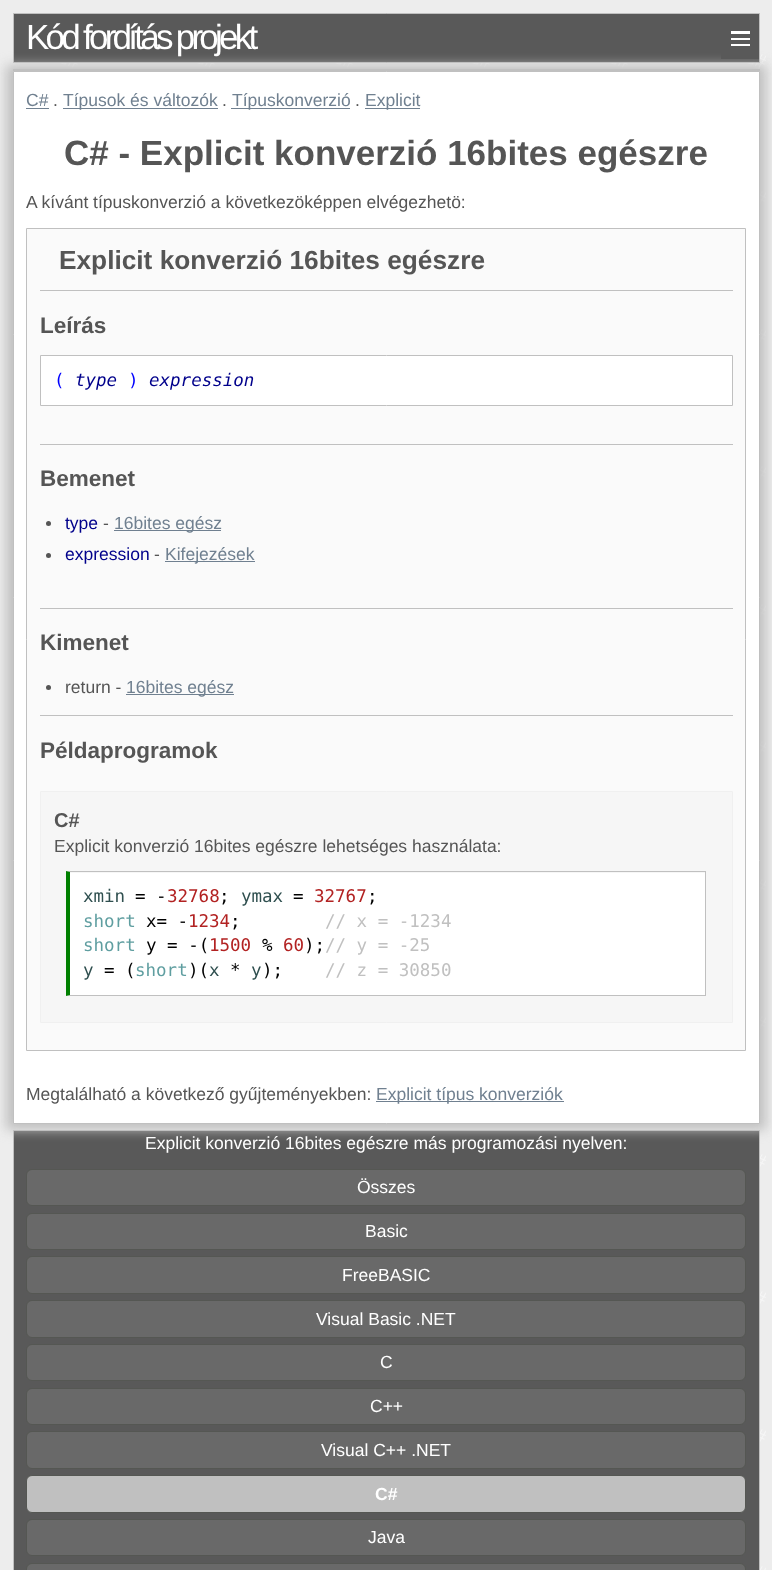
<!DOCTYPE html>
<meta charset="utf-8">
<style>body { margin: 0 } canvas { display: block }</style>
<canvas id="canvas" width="772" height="1570"></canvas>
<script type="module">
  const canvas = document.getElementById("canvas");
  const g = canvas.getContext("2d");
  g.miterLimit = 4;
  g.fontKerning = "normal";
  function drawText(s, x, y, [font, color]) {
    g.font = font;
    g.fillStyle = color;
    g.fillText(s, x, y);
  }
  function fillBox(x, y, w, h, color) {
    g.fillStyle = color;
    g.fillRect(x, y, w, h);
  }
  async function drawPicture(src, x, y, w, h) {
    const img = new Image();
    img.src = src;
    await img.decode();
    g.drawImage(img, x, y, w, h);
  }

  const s1 = ["35px Liberation Sans", "#FFFFFF"];
  const s2 = ["17.5px Liberation Sans", "#708090"];
  const s3 = ["17.5px Liberation Sans", "#555555"];
  const s4 = ["bold 35px Liberation Sans", "#555555"];
  const s5 = ["bold 26.25px Liberation Sans", "#555555"];
  const s6 = ["bold 22.5px Liberation Sans", "#555555"];
  const s7 = ["17.5px DejaVu Sans Mono", "#0000FF"];
  const s8 = ["italic 17.5px DejaVu Sans Mono", "#00008B"];
  const s9 = ["17.5px Liberation Sans", "#00008B"];
  const s10 = ["bold 20px Liberation Sans", "#555555"];
  const s11 = ["17.5px DejaVu Sans Mono", "#2F4F4F"];
  const s12 = ["17.5px DejaVu Sans Mono", "#000000"];
  const s13 = ["17.5px DejaVu Sans Mono", "#B22222"];
  const s14 = ["17.5px DejaVu Sans Mono", "#5F9EA0"];
  const s15 = ["17.5px DejaVu Sans Mono", "#C0C0C0"];
  const s16 = ["17.5px Liberation Sans", "#FFFFFF"];
  const s17 = ["bold 17.5px Liberation Sans", "#FFFFFF"];

  fillBox(0, 0, 772, 1570, "#EDEDED");
  await drawPicture("pic1.png", 57, 50, 709, 1520);
  g.fillStyle = "#595959";
  g.beginPath();
  g.rect(13.5, 13.5, 746, 49);
  g.fill();
  g.strokeStyle = "#C0C0C0";
  g.stroke();
  g.letterSpacing = "-3.75px";
  drawText("Kód fordítás projekt", 26, 49, s1);
  fillBox(13, 69, 747, 2, "#C0C0C0");
  g.fillStyle = "#595959";
  g.beginPath();
  g.rect(13.5, 1130.5, 746, 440);
  g.fill();
  g.stroke();
  g.fillStyle = "#C0C0C0";
  g.filter = "blur(6px)";
  g.beginPath();
  g.rect(6, 65, 760, 1065);
  g.fill();
  g.filter = "none";
  fillBox(721, 53, 38, 6, "#595959");
  fillBox(731, 31, 19, 15, "#FFFFFF");
  fillBox(731, 34, 19, 4, "#595959");
  fillBox(731, 40, 19, 4, "#595959");
  g.fillStyle = "#FFFFFF";
  g.beginPath();
  g.rect(13.5, 71.5, 746, 1052);
  g.fill();
  g.stroke();
  g.letterSpacing = "0px";
  drawText("C#", 26, 106, s2);
  fillBox(26, 108, 23, 1, "#708090");
  drawText(".", 53, 106, s3);
  fillBox(63, 108, 155, 1, "#708090");
  drawText("Típusok és változók", 63, 106, s2);
  drawText(".", 222, 106, s3);
  fillBox(231, 108, 119, 1, "#708090");
  drawText("Típuskonverzió", 232, 106, s2);
  drawText(".", 355, 106, s3);
  fillBox(365, 108, 55, 1, "#708090");
  drawText("Explicit", 365, 106, s2);
  drawText("C# - Explicit konverzió 16bites egészre", 64, 165, s4);
  drawText("A kívánt típuskonverzió a következöképpen elvégezhetö:", 26, 208, s3);
  g.fillStyle = "#FAFAFA";
  g.beginPath();
  g.rect(26.5, 228.5, 719, 822);
  g.fill();
  g.stroke();
  drawText("Explicit konverzió 16bites egészre", 59, 269, s5);
  fillBox(40, 290, 693, 1, "#C0C0C0");
  drawText("Leírás", 40, 333, s6);
  g.fillStyle = "#FFFFFF";
  g.beginPath();
  g.rect(40.5, 355.5, 692, 50);
  g.fill();
  g.stroke();
  drawText("(", 54, 386, s7);
  drawText("type", 75, 386, s8);
  drawText(")", 128, 386, s7);
  drawText("expression", 149, 386, s8);
  fillBox(40, 444, 693, 1, "#C0C0C0");
  drawText("Bemenet", 40, 486, s6);
  g.beginPath();
  g.arc(48.5, 523.5, 2.5, 0, Math.PI * 2);
  g.fill();
  drawText("type", 65, 529, s9);
  drawText("-", 103, 529, s3);
  fillBox(114, 530, 107, 1, "#708090");
  drawText("16bites egész", 114, 529, s2);
  g.fillStyle = "#555555";
  g.beginPath();
  g.arc(48.5, 555.5, 2.5, 0, Math.PI * 2);
  g.fill();
  drawText("expression", 65, 560, s9);
  drawText("-", 154, 560, s3);
  fillBox(165, 561, 90, 1, "#708090");
  drawText("Kifejezések", 165, 560, s2);
  fillBox(40, 608, 693, 1, "#C0C0C0");
  drawText("Kimenet", 40, 650, s6);
  g.beginPath();
  g.arc(48.5, 687.5, 2.5, 0, Math.PI * 2);
  g.fill();
  drawText("return -", 65, 693, s3);
  fillBox(126, 694, 108, 1, "#708090");
  drawText("16bites egész", 126, 693, s2);
  fillBox(40, 715, 693, 1, "#C0C0C0");
  drawText("Példaprogramok", 40, 758, s6);
  g.fillStyle = "#F6F6F6";
  g.beginPath();
  g.rect(40.5, 791.5, 692, 231);
  g.fill();
  g.strokeStyle = "#F0F0F0";
  g.stroke();
  drawText("C#", 54, 827, s10);
  drawText("Explicit konverzió 16bites egészre lehetséges használata:", 54, 852, s3);
  fillBox(70, 873, 635, 122, "#FFFFFF");
  g.fillStyle = "#C0C0C0";
  g.beginPath();
  g.moveTo(66, 871);
  g.lineTo(706, 871);
  g.lineTo(705, 872);
  g.lineTo(70, 872);
  g.closePath();
  g.fill();
  fillBox(705, 871, 1, 125, "#C0C0C0");
  g.beginPath();
  g.moveTo(706, 996);
  g.lineTo(66, 996);
  g.lineTo(70, 995);
  g.lineTo(705, 995);
  g.closePath();
  g.fill();
  g.fillStyle = "#008000";
  g.beginPath();
  g.moveTo(66, 996);
  g.lineTo(66, 871);
  g.lineTo(70, 872);
  g.lineTo(70, 995);
  g.closePath();
  g.fill();
  drawText("xmin", 83, 902, s11);
  drawText("= -", 135, 902, s12);
  drawText("32768", 167, 902, s13);
  drawText(";", 219, 902, s12);
  drawText("ymax", 241, 902, s11);
  drawText("=", 293, 902, s12);
  drawText("32767", 314, 902, s13);
  drawText(";", 367, 902, s12);
  drawText("short", 83, 927, s14);
  drawText("x= -", 146, 927, s12);
  drawText("1234", 188, 927, s13);
  drawText(";", 230, 927, s12);
  drawText("// x = -1234", 325, 927, s15);
  drawText("short", 83, 951, s14);
  drawText("y = -(", 146, 951, s12);
  drawText("1500", 209, 951, s13);
  drawText("%", 262, 951, s12);
  drawText("60", 283, 951, s13);
  drawText(");", 304, 951, s12);
  drawText("// y = -25", 325, 951, s15);
  drawText("y", 83, 976, s11);
  drawText("= (", 104, 976, s12);
  drawText("short", 135, 976, s14);
  drawText(")(", 188, 976, s12);
  drawText("x", 209, 976, s11);
  drawText("*", 230, 976, s12);
  drawText("y", 251, 976, s11);
  drawText(");", 262, 976, s12);
  drawText("// z = 30850", 325, 976, s15);
  drawText("Megtalálható a következő gyűjteményekben:", 26, 1100, s3);
  fillBox(376, 1101, 188, 1, "#708090");
  drawText("Explicit típus konverziók", 376, 1100, s2);
  drawText("Explicit konverzió 16bites egészre más programozási nyelven:", 145, 1149, s16);
  g.fillStyle = "#696969";
  g.beginPath();
  g.roundRect(26.5, 1169.5, 719, 36, 5.5);
  g.fill();
  g.strokeStyle = "#555753";
  g.stroke();
  drawText("Összes", 357, 1193, s16);
  g.fillStyle = "#696969";
  g.beginPath();
  g.roundRect(26.5, 1213.5, 719, 36, 5.5);
  g.fill();
  g.stroke();
  drawText("Basic", 365, 1237, s16);
  g.fillStyle = "#696969";
  g.beginPath();
  g.roundRect(26.5, 1256.5, 719, 37, 5.5);
  g.fill();
  g.stroke();
  drawText("FreeBASIC", 342, 1281, s16);
  g.fillStyle = "#696969";
  g.beginPath();
  g.roundRect(26.5, 1300.5, 719, 37, 5.5);
  g.fill();
  g.stroke();
  drawText("Visual Basic .NET", 316, 1325, s16);
  g.fillStyle = "#696969";
  g.beginPath();
  g.roundRect(26.5, 1344.5, 719, 36, 5.5);
  g.fill();
  g.stroke();
  drawText("C", 380, 1368, s16);
  g.fillStyle = "#696969";
  g.beginPath();
  g.roundRect(26.5, 1388.5, 719, 36, 5.5);
  g.fill();
  g.stroke();
  drawText("C++", 370, 1412, s16);
  g.fillStyle = "#696969";
  g.beginPath();
  g.roundRect(26.5, 1431.5, 719, 37, 5.5);
  g.fill();
  g.stroke();
  drawText("Visual C++ .NET", 321, 1456, s16);
  g.fillStyle = "#C0C0C0";
  g.beginPath();
  g.roundRect(26.5, 1475.5, 719, 37, 5.5);
  g.fill();
  g.stroke();
  drawText("C#", 375, 1500, s17);
  g.fillStyle = "#696969";
  g.beginPath();
  g.roundRect(26.5, 1519.5, 719, 36, 5.5);
  g.fill();
  g.stroke();
  drawText("Java", 368, 1543, s16);
  g.fillStyle = "#696969";
  g.beginPath();
  g.roundRect(26.5, 1563.5, 719, 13, 5.5);
  g.fill();
  g.stroke();
</script>
